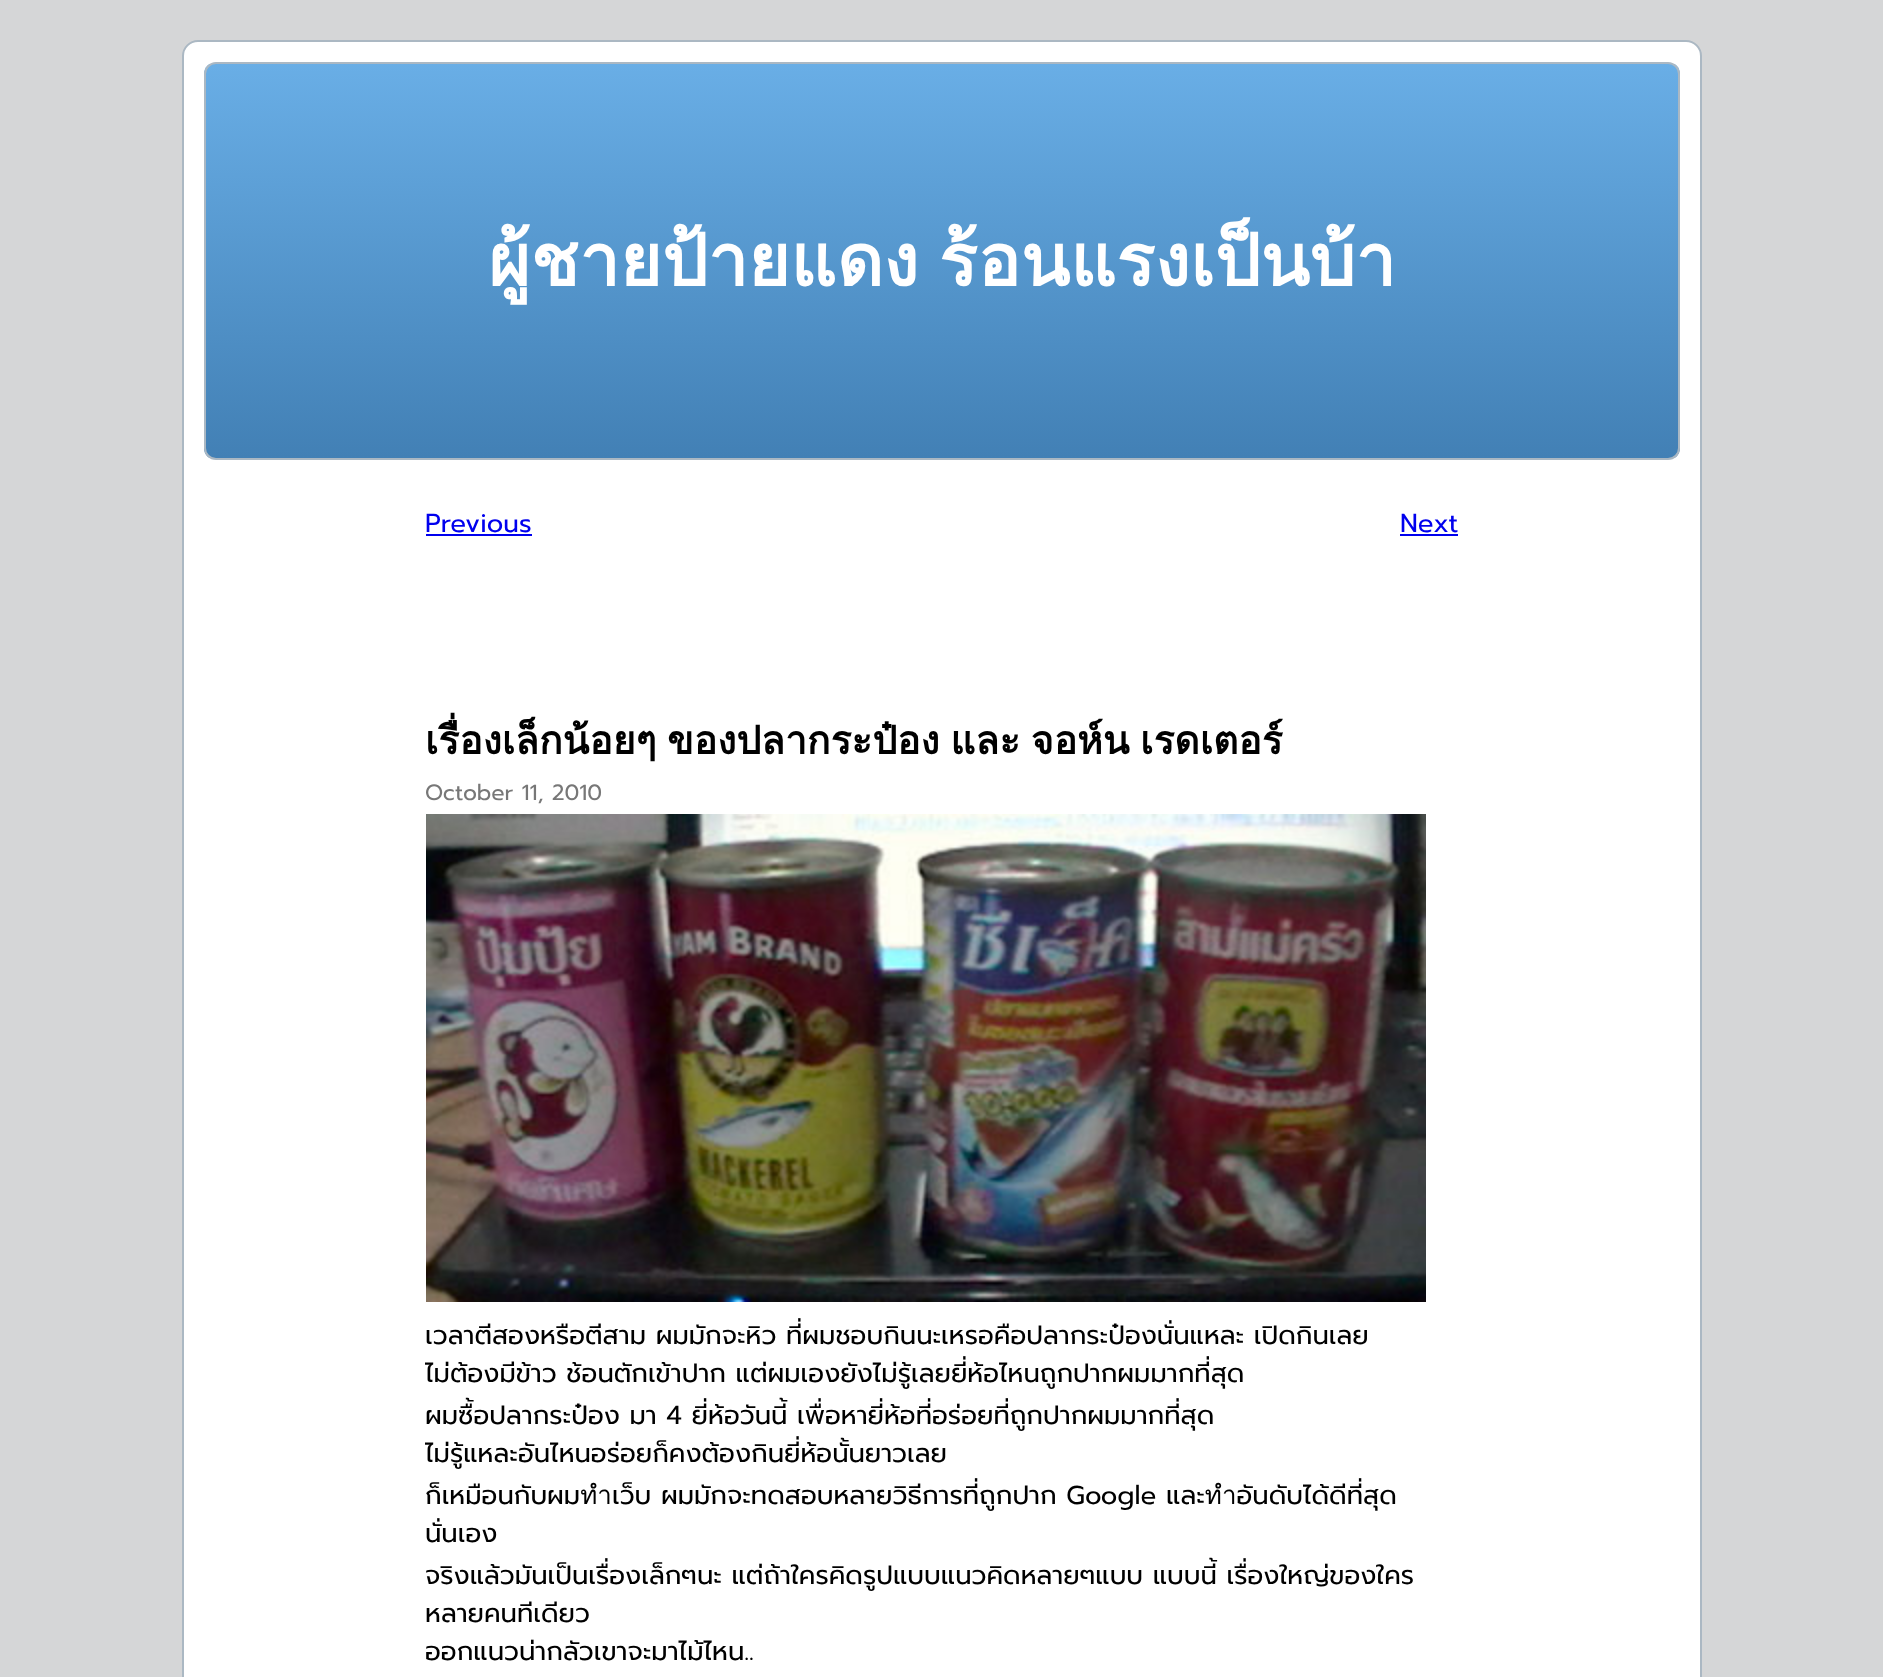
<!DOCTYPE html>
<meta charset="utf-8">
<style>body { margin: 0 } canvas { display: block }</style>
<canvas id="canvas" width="1883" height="1677"></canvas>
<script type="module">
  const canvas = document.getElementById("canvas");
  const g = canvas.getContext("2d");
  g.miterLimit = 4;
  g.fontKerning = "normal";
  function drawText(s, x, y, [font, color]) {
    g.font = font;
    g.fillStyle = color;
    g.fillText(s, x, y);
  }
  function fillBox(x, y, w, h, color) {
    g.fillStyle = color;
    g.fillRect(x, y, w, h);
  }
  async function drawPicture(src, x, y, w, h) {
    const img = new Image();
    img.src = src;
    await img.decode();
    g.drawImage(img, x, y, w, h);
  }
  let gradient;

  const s1 = ["bold 72px Loma", "#FFFFFF"];
  const s2 = ["26px Prompt", "#0000EE"];
  const s3 = ["bold 39px Loma", "#000000"];
  const s4 = ["22px Prompt", "#777777"];
  const s5 = ["26px Prompt", "#000000"];

  fillBox(0, 0, 1883, 1677, "#D5D6D7");
  g.fillStyle = "#FFFFFF";
  g.beginPath();
  g.roundRect(183, 41, 1518, 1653, 15);
  g.fill();
  g.strokeStyle = "#ABB8C3";
  g.lineWidth = 2;
  g.stroke();
  g.save();
  g.beginPath();
  g.roundRect(204, 62, 1476, 398, 12);
  g.clip();
  gradient = g.createLinearGradient(942, 64, 942, 458);
  gradient.addColorStop(0, "#69AEE6");
  gradient.addColorStop(1, "#4280B5");
  g.fillStyle = gradient;
  g.fillRect(204, 64, 1476, 394);
  g.restore();
  g.beginPath();
  g.roundRect(205, 63, 1474, 396, 11);
  g.stroke();
  g.wordSpacing = "-4px";
  drawText("ผู้ชายป้ายแดง ร้อนแรงเป็นบ้า", 488, 286, s1);
  g.wordSpacing = "0px";
  drawText("Previous", 425, 532, s2);
  fillBox(426, 534, 106, 2, "#0000EE");
  drawText("Next", 1400, 532, s2);
  fillBox(1400, 534, 58, 2, "#0000EE");
  g.wordSpacing = "-2.5px";
  drawText("เรื่องเล็กน้อยๆ ของปลากระป๋อง และ จอห์น เรดเตอร์", 425, 754, s3);
  g.wordSpacing = "0px";
  drawText("October 11, 2010", 425, 800, s4);
  await drawPicture("pic1.png", 426, 814, 1000, 488);
  drawText("เวลาตีสองหรือตีสาม ผมมักจะหิว ที่ผมชอบกินนะเหรอคือปลากระป๋องนั่นแหละ เปิดกินเลย", 425, 1344, s5);
  drawText("ไม่ต้องมีข้าว ช้อนตักเข้าปาก แต่ผมเองยังไม่รู้เลยยี่ห้อไหนถูกปากผมมากที่สุด", 425, 1382, s5);
  drawText("ผมซื้อปลากระป๋อง มา 4 ยี่ห้อวันนี้ เพื่อหายี่ห้อที่อร่อยที่ถูกปากผมมากที่สุด", 425, 1424, s5);
  drawText("ไม่รู้แหละอันไหนอร่อยก็คงต้องกินยี่ห้อนั้นยาวเลย", 425, 1462, s5);
  drawText("ก็เหมือนกับผมทำเว็บ ผมมักจะทดสอบหลายวิธีการที่ถูกปาก Google และทำอันดับได้ดีที่สุด", 425, 1504, s5);
  drawText("นั่นเอง", 425, 1542, s5);
  drawText("จริงแล้วมันเป็นเรื่องเล็กๆนะ แต่ถ้าใครคิดรูปแบบแนวคิดหลายๆแบบ แบบนี้ เรื่องใหญ่ของใคร", 425, 1584, s5);
  drawText("หลายคนทีเดียว", 425, 1622, s5);
  drawText("ออกแนวน่ากลัวเขาจะมาไม้ไหน..", 425, 1660, s5);
</script>
